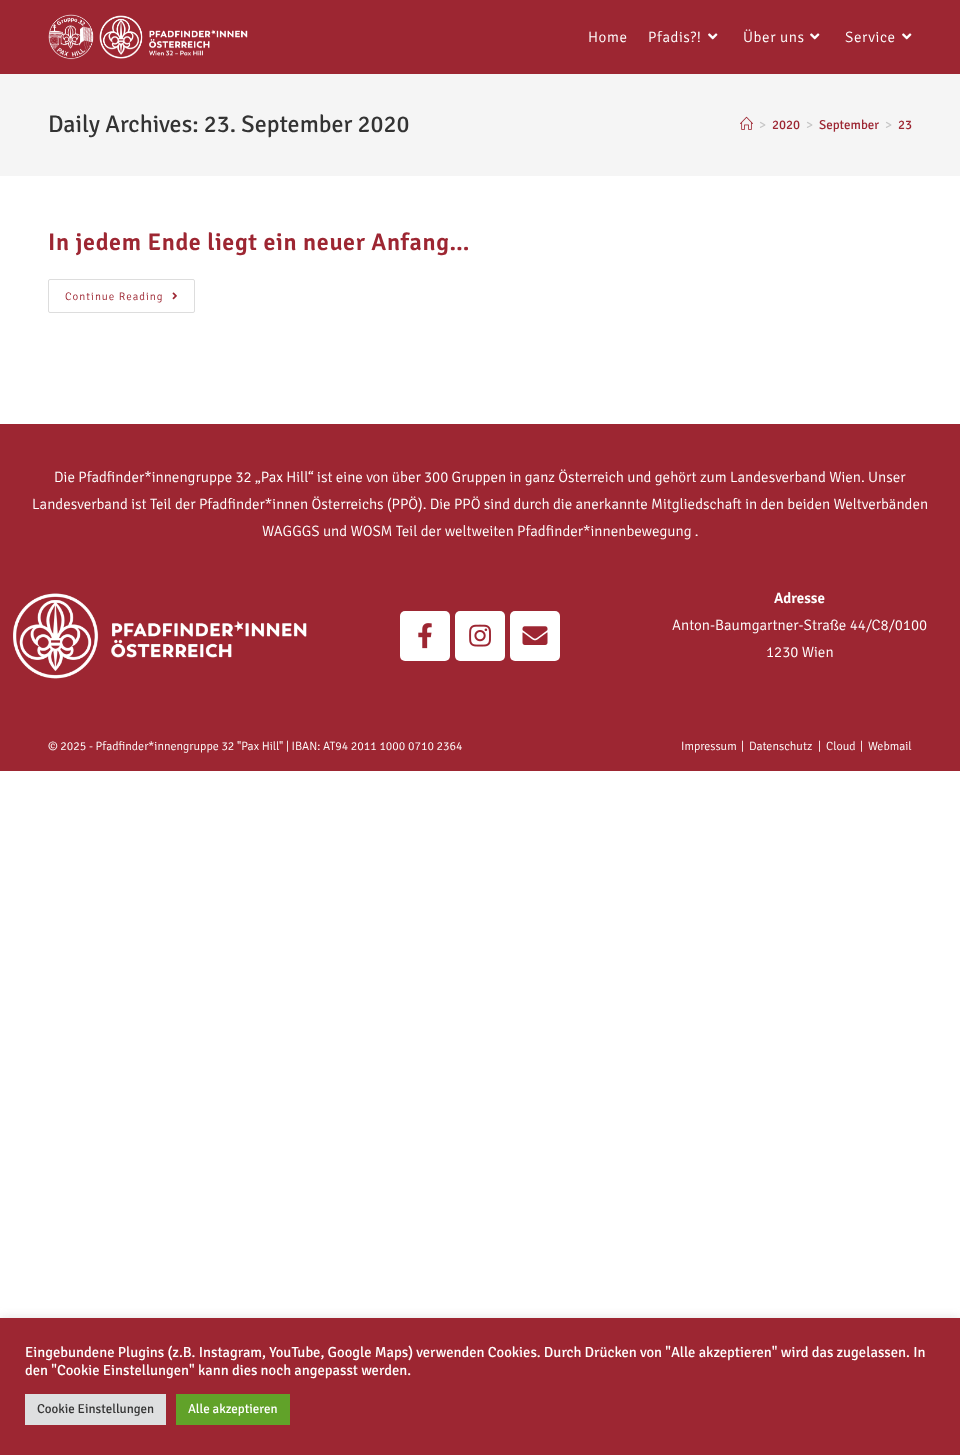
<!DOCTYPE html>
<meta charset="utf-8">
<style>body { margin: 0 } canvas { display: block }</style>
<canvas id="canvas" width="960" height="1455"></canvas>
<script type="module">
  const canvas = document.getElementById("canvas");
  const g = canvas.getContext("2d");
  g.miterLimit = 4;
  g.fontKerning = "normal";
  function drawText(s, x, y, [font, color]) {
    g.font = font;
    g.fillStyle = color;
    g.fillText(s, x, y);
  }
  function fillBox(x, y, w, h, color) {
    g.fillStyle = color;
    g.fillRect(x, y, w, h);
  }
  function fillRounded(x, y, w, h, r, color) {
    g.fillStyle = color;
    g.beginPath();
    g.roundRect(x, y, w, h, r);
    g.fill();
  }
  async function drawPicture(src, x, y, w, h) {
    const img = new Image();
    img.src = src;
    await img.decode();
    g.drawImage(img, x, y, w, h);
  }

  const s1 = ["300 15px 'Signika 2'", "#FFFFFF"];
  const s2 = ["300 24px Signika", "#333333"];
  const s3 = ["300 13px Signika", "#C6C6C6"];
  const s4 = ["300 13px Signika", "#9D2632"];
  const s5 = ["600 24px Signika", "#9D2632"];
  const s6 = ["300 11px 'Signika 2'", "#9D2632"];
  const s7 = ["600 15px Signika", "#FFFFFF"];
  const s8 = ["300 12px 'Signika 2'", "#FFFFFF"];
  const s9 = ["300 14.67px Signika", "#FFFFFF"];
  const s10 = ["300 13px Signika", "#333333"];
  const s11 = ["300 13px Signika", "#FFFFFF"];

  fillBox(0, 0, 960, 1455, "#FFFFFF");
  fillBox(0, 0, 960, 74, "#9D2632");
  await drawPicture("pic1.png", 48, 14, 200, 46);
  g.letterSpacing = "0.6px";
  drawText("Home", 588, 42, s1);
  drawText("Pfadis?!", 648, 42, s1);
  await drawPicture("pic2.png", 708, 33, 10, 7);
  drawText("Über uns", 743, 42, s1);
  await drawPicture("pic2.png", 810, 33, 10, 7);
  drawText("Service", 845, 42, s1);
  await drawPicture("pic2.png", 902, 33, 10, 7);
  fillBox(0, 74, 960, 102, "#F5F5F5");
  g.letterSpacing = "0px";
  drawText("Daily Archives: 23. September 2020", 48, 132, s2);
  await drawPicture("pic3.png", 740, 116, 13, 14);
  drawText(">", 759, 129, s3);
  drawText("2020", 772, 129, s4);
  drawText(">", 806, 129, s3);
  drawText("September", 819, 129, s4);
  drawText(">", 885, 129, s3);
  drawText("23", 898, 129, s4);
  g.letterSpacing = "0.6px";
  drawText("In jedem Ende liegt ein neuer Anfang…", 48, 250, s5);
  g.beginPath();
  g.roundRect(48.5, 279.5, 146, 33, 1.5);
  g.strokeStyle = "#DDDDDD";
  g.stroke();
  g.letterSpacing = "1px";
  drawText("Continue Reading", 65, 300, s6);
  await drawPicture("pic4.png", 172, 292, 5, 8);
  fillBox(0, 424, 960, 347, "#9D2632");
  g.letterSpacing = "0px";
  drawText("Die Pfadfinder*innengruppe 32 „Pax Hill“ ist eine von über 300 Gruppen in ganz Österreich und gehört zum Landesverband Wien. Unser", 54, 482, s1);
  drawText("Landesverband ist Teil der Pfadfinder*innen Österreichs (PPÖ). Die PPÖ sind durch die anerkannte Mitgliedschaft in den beiden Weltverbänden", 32, 509, s1);
  drawText("WAGGGS und WOSM Teil der weltweiten Pfadfinder*innenbewegung .", 262, 536, s1);
  await drawPicture("pic5.png", 13, 593, 294, 86);
  fillRounded(400, 611, 50, 50, 5, "#FFFFFF");
  await drawPicture("pic6.png", 418, 623, 14, 26);
  fillRounded(455, 611, 50, 50, 5, "#FFFFFF");
  await drawPicture("pic7.png", 469, 624, 22, 23);
  fillRounded(510, 611, 50, 50, 5, "#FFFFFF");
  await drawPicture("pic8.png", 522, 626, 26, 19);
  drawText("Adresse", 774, 603, s7);
  drawText("Anton-Baumgartner-Straße 44/C8/0100", 672, 630, s1);
  drawText("1230 Wien", 766, 657, s1);
  drawText("© 2025 - Pfadfinder*innengruppe 32 \"Pax Hill\" | IBAN: AT94 2011 1000 0710 2364", 48, 750, s8);
  drawText("Impressum", 681, 750, s8);
  drawText("|", 741, 750, s8);
  drawText("Datenschutz", 749, 750, s8);
  drawText("|", 818, 750, s8);
  drawText("Cloud", 826, 750, s8);
  drawText("|", 860, 750, s8);
  drawText("Webmail", 868, 750, s8);
  g.fillStyle = "rgba(172, 171, 171, 0.3)";
  g.filter = "blur(5px)";
  g.beginPath();
  g.rect(0, 1317, 960, 137);
  g.fill();
  g.filter = "none";
  fillBox(0, 1318, 960, 137, "#9D2632");
  drawText("Eingebundene Plugins (z.B. Instagram, YouTube, Google Maps) verwenden Cookies. Durch Drücken von \"Alle akzeptieren\" wird das zugelassen. In", 25, 1357, s9);
  drawText("den \"Cookie Einstellungen\" kann dies noch angepasst werden.", 25, 1375, s9);
  fillBox(25, 1394, 141, 31, "#DEDFE0");
  drawText("Cookie Einstellungen", 37, 1413, s10);
  fillBox(176, 1394, 114, 31, "#61A229");
  drawText("Alle akzeptieren", 188, 1413, s11);
</script>
